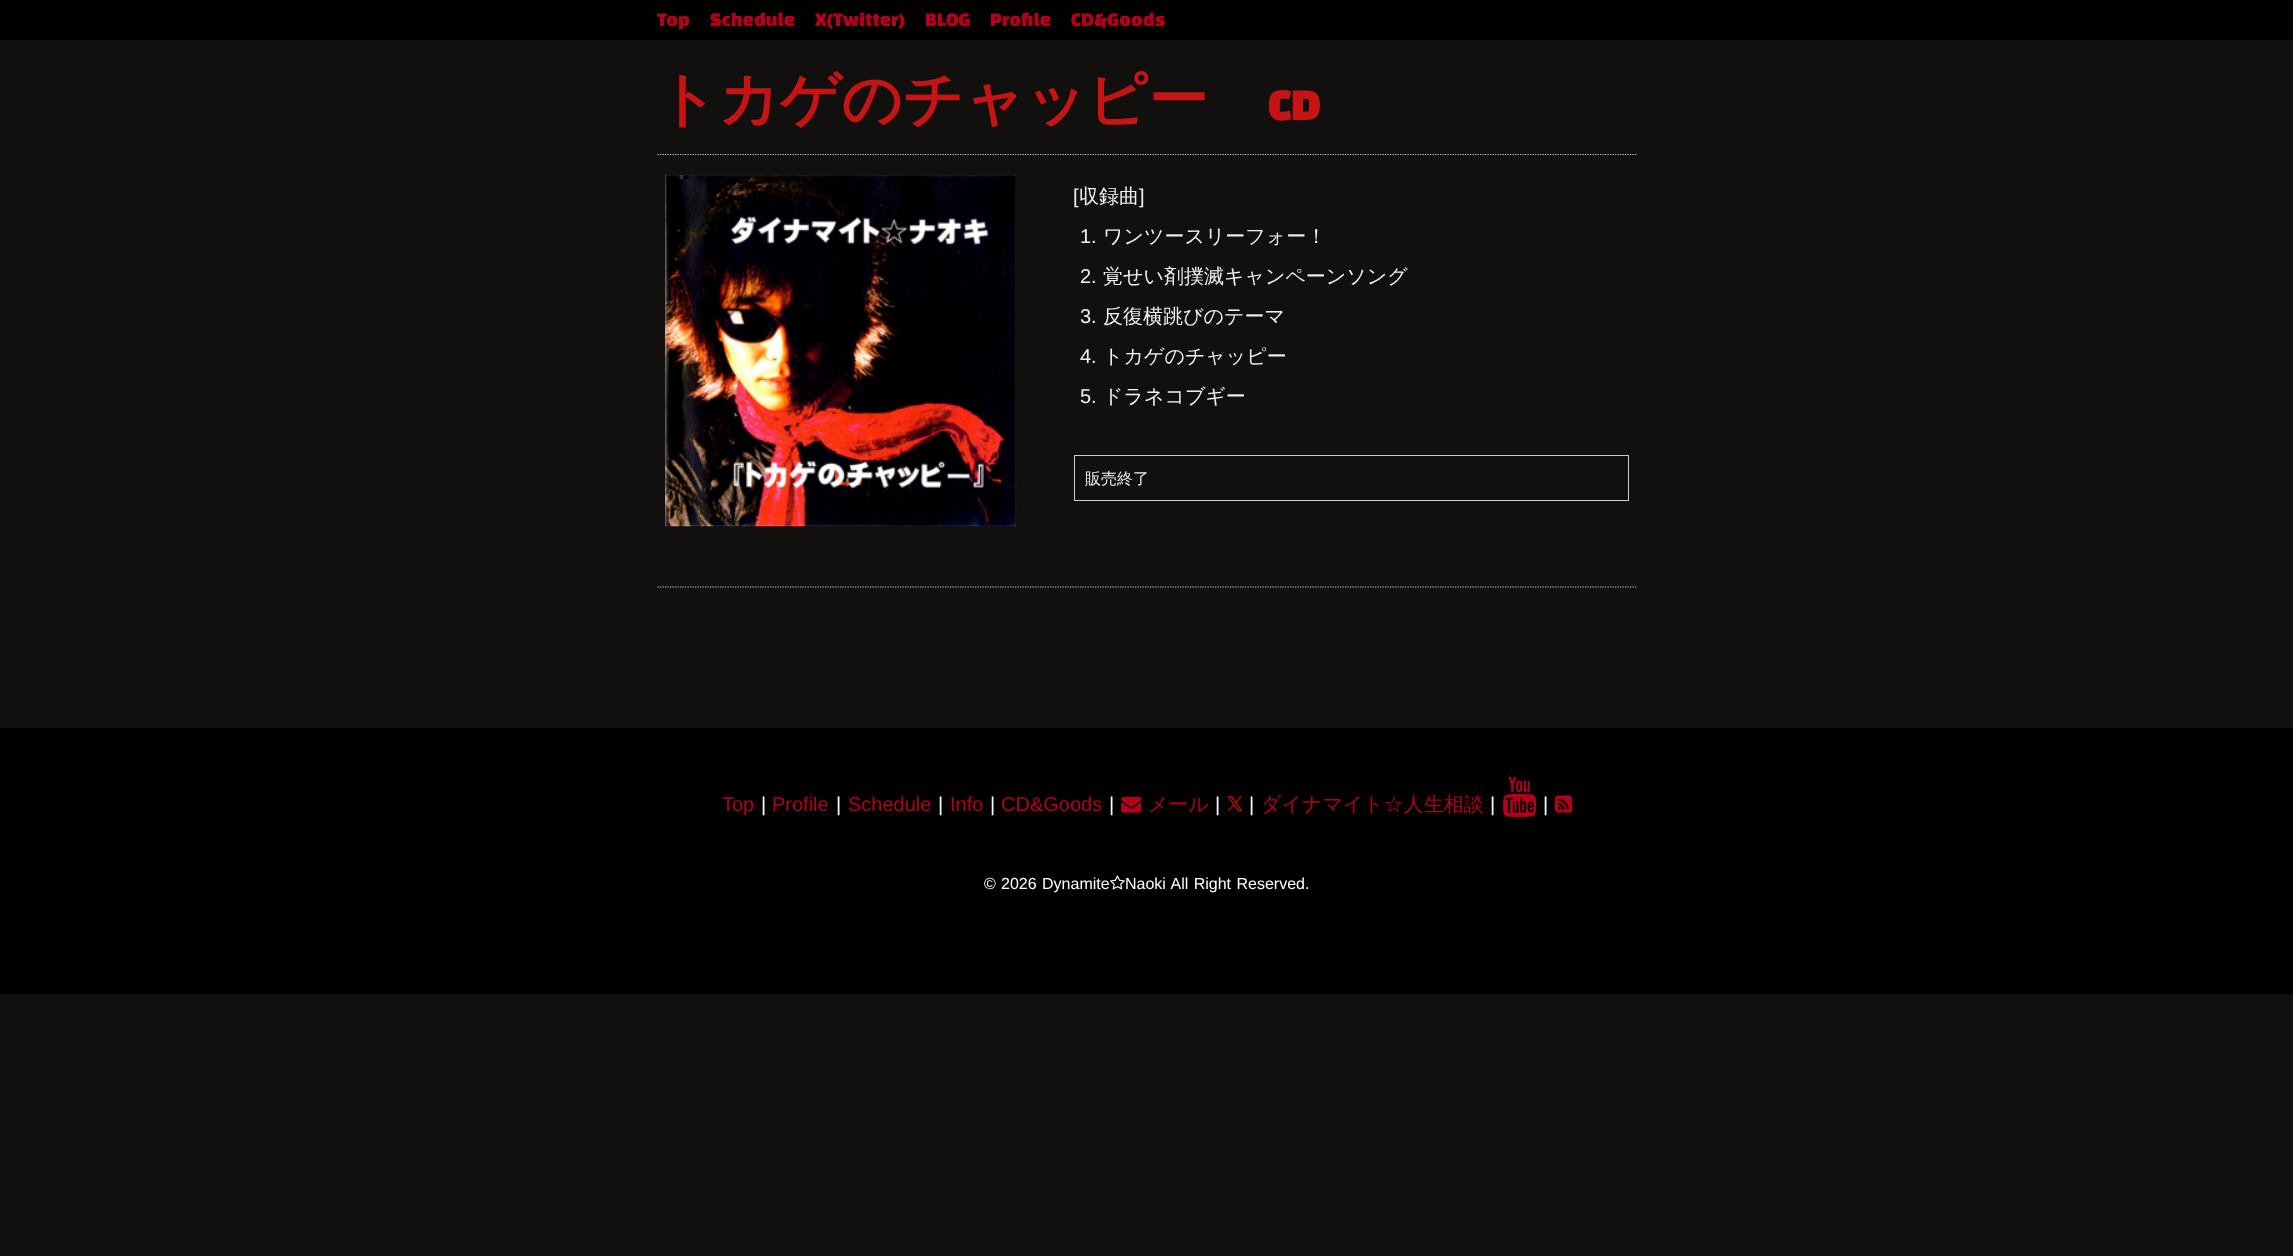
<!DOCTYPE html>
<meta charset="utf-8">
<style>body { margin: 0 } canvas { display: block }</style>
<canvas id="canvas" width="2293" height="1256"></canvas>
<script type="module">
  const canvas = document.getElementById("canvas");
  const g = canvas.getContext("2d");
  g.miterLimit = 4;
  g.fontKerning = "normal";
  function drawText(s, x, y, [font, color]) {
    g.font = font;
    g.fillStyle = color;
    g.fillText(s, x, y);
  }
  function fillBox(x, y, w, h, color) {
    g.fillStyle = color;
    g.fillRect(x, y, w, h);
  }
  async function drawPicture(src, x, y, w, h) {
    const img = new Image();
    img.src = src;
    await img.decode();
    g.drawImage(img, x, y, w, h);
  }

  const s1 = ["20px Changa One", "#B5001C"];
  const s2 = ["bold 60px WenQuanYi Zen Hei", "#C61414"];
  const s3 = ["bold 45px Changa One", "#C61414"];
  const s4 = ["20px Liberation Sans", "#EDEFF0"];
  const s5 = ["500 20px WenQuanYi Zen Hei", "#EDEFF0"];
  const s6 = ["500 16px WenQuanYi Zen Hei", "#EDEFF0"];
  const s7 = ["20px Liberation Sans", "#B5001C"];
  const s8 = ["20px Liberation Sans", "#FFFFFF"];
  const s9 = ["500 20px WenQuanYi Zen Hei", "#B5001C"];
  const s10 = ["16px Liberation Sans", "#FFFFFF"];

  fillBox(0, 0, 2293, 1256, "#12100F");
  fillBox(0, 0, 2293, 40, "#010100");
  drawText("Top", 657, 26, s1);
  drawText("Schedule", 710, 26, s1);
  drawText("X(Twitter)", 815, 26, s1);
  drawText("BLOG", 925, 26, s1);
  drawText("Profile", 990, 26, s1);
  drawText("CD&Goods", 1071, 26, s1);
  drawText("トカゲのチャッピー", 657, 120, s2);
  drawText("CD", 1268, 120, s3);
  g.beginPath();
  g.moveTo(657.5, 154.5);
  g.lineTo(1637.5, 154.5);
  g.strokeStyle = "#CCCCCC";
  g.lineWidth = 1.2;
  g.setLineDash([1.25, 1.25]);
  g.stroke();
  await drawPicture("pic1.png", 665, 175, 352, 352);
  drawText("[", 1073, 203, s4);
  drawText("収録曲", 1079, 203, s5);
  drawText("]", 1139, 203, s4);
  drawText("1.", 1080, 243, s4);
  drawText("ワンツースリーフォー！", 1103, 243, s5);
  drawText("2.", 1080, 283, s4);
  drawText("覚せい剤撲滅キャンペーンソング", 1103, 283, s5);
  drawText("3.", 1080, 323, s4);
  drawText("反復横跳びのテーマ", 1103, 323, s5);
  drawText("4.", 1080, 363, s4);
  drawText("トカゲのチャッピー", 1103, 363, s5);
  drawText("5.", 1080, 403, s4);
  drawText("ドラネコブギー", 1103, 403, s5);
  g.lineWidth = 1;
  g.setLineDash([]);
  g.strokeRect(1074.5, 455.5, 554, 45);
  drawText("販売終了", 1085, 484, s6);
  g.beginPath();
  g.moveTo(657.5, 587);
  g.lineTo(1637.5, 587);
  g.lineWidth = 1.2;
  g.setLineDash([1.25, 1.25]);
  g.stroke();
  fillBox(0, 728, 2293, 266, "#000000");
  drawText("Top", 722, 811, s7);
  drawText("|", 761, 811, s8);
  drawText("Profile", 772, 811, s7);
  drawText("|", 836, 811, s8);
  drawText("Schedule", 848, 811, s7);
  drawText("|", 938, 811, s8);
  drawText("Info", 950, 811, s7);
  drawText("|", 990, 811, s8);
  drawText("CD&Goods", 1001, 811, s7);
  drawText("|", 1109, 811, s8);
  await drawPicture("pic2.png", 1121, 796, 21, 17);
  drawText("メール", 1148, 811, s9);
  drawText("|", 1215, 811, s8);
  await drawPicture("pic3.png", 1228, 796, 15, 15);
  drawText("|", 1249, 811, s8);
  drawText("ダイナマイト☆人生相談", 1261, 811, s9);
  drawText("|", 1490, 811, s8);
  await drawPicture("pic4.png", 1503, 776, 34, 41);
  drawText("|", 1543, 811, s8);
  await drawPicture("pic5.png", 1555, 795, 18, 18);
  drawText("©", 984, 889, s10);
  g.wordSpacing = "1px";
  drawText("2026 Dynamite", 1001, 889, s10);
  await drawPicture("pic6.png", 1110, 875, 15, 15);
  drawText("Naoki All Right Reserved.", 1125, 889, s10);
</script>
